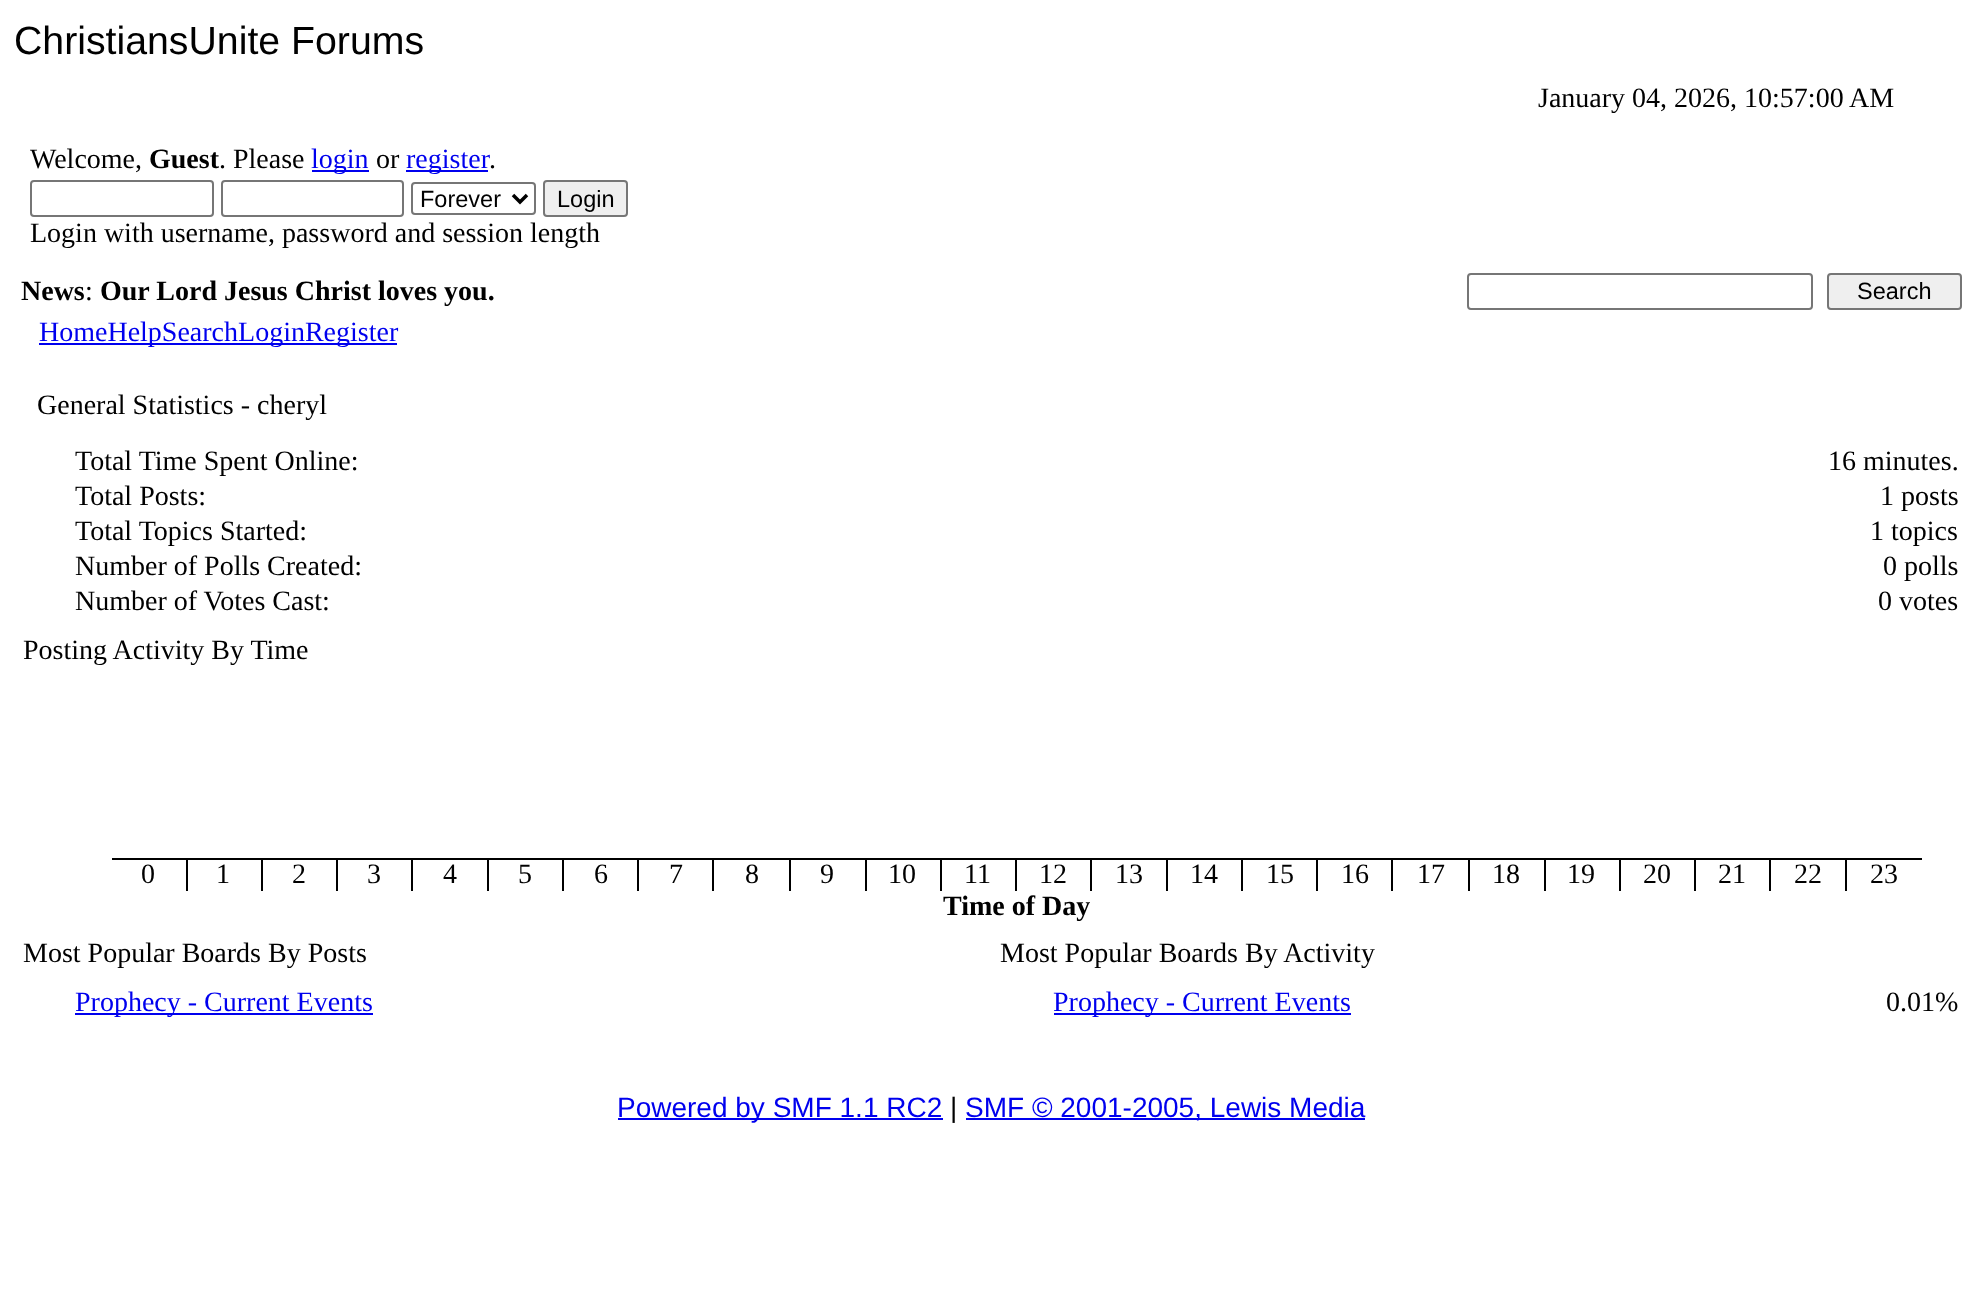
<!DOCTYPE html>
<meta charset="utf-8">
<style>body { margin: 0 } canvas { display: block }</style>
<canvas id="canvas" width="1982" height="1316"></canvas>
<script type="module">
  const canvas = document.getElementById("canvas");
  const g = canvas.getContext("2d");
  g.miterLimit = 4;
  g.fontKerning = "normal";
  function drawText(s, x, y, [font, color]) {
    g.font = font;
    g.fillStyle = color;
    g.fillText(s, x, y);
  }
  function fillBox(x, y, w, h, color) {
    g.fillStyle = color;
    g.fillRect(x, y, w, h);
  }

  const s1 = ["39.25px Liberation Sans", "#000000"];
  const s2 = ["28px Liberation Serif", "#000000"];
  const s3 = ["bold 28px Liberation Serif", "#000000"];
  const s4 = ["28px Liberation Serif", "#0000EE"];
  const s5 = ["23.5px Liberation Sans", "#000000"];
  const s6 = ["28px Liberation Sans", "#0000EE"];
  const s7 = ["28px Liberation Sans", "#000000"];

  fillBox(0, 0, 1982, 1316, "#FFFFFF");
  drawText("ChristiansUnite Forums", 14, 54, s1);
  drawText("January 04, 2026, 10:57:00 AM", 1538, 107, s2);
  drawText("Welcome,", 30, 168, s2);
  drawText("Guest", 149, 168, s3);
  drawText(". Please", 219, 168, s2);
  fillBox(312, 170, 57, 2, "#0000EE");
  drawText("login", 311, 168, s4);
  drawText("or", 376, 168, s2);
  fillBox(406, 170, 82, 2, "#0000EE");
  drawText("register", 406, 168, s4);
  drawText(".", 489, 168, s2);
  g.beginPath();
  g.roundRect(31, 181, 182, 35, 3);
  g.strokeStyle = "#767676";
  g.lineWidth = 2;
  g.stroke();
  g.beginPath();
  g.roundRect(222, 181, 181, 35, 3);
  g.stroke();
  g.beginPath();
  g.roundRect(412, 183, 123, 31, 3);
  g.stroke();
  g.beginPath();
  g.moveTo(513, 195);
  g.lineTo(520, 202);
  g.lineTo(527, 195);
  g.strokeStyle = "#000000";
  g.lineWidth = 3.5;
  g.stroke();
  drawText("Forever", 420, 207, s5);
  g.fillStyle = "#EFEFEF";
  g.beginPath();
  g.roundRect(544, 181, 83, 35, 3);
  g.fill();
  g.strokeStyle = "#767676";
  g.lineWidth = 2;
  g.stroke();
  drawText("Login", 557, 207, s5);
  drawText("Login with username, password and session length", 30, 242, s2);
  drawText("News", 21, 300, s3);
  drawText(":", 85, 300, s2);
  drawText("Our Lord Jesus Christ loves you.", 100, 300, s3);
  g.beginPath();
  g.roundRect(1468, 274, 344, 35, 3);
  g.stroke();
  g.fillStyle = "#EFEFEF";
  g.beginPath();
  g.roundRect(1828, 274, 133, 35, 3);
  g.fill();
  g.stroke();
  drawText("Search", 1857, 299, s5);
  fillBox(39, 343, 358, 2, "#0000EE");
  drawText("HomeHelpSearchLoginRegister", 39, 341, s4);
  drawText("General Statistics - cheryl", 37, 414, s2);
  drawText("Total Time Spent Online:", 75, 470, s2);
  drawText("16 minutes.", 1828, 470, s2);
  drawText("Total Posts:", 75, 505, s2);
  drawText("1 posts", 1880, 505, s2);
  drawText("Total Topics Started:", 75, 540, s2);
  drawText("1 topics", 1870, 540, s2);
  drawText("Number of Polls Created:", 75, 575, s2);
  drawText("0 polls", 1883, 575, s2);
  drawText("Number of Votes Cast:", 75, 610, s2);
  drawText("0 votes", 1878, 610, s2);
  drawText("Posting Activity By Time", 23, 659, s2);
  fillBox(112, 858, 75, 2, "#000000");
  fillBox(186, 858, 2, 33, "#000000");
  drawText("0", 141, 883, s2);
  fillBox(187, 858, 301, 2, "#000000");
  fillBox(261, 858, 2, 33, "#000000");
  drawText("1", 216, 883, s2);
  fillBox(336, 858, 2, 33, "#000000");
  drawText("2", 292, 883, s2);
  fillBox(411, 858, 2, 33, "#000000");
  drawText("3", 367, 883, s2);
  fillBox(487, 858, 2, 33, "#000000");
  drawText("4", 443, 883, s2);
  fillBox(488, 858, 378, 2, "#000000");
  fillBox(562, 858, 2, 33, "#000000");
  drawText("5", 518, 883, s2);
  fillBox(637, 858, 2, 33, "#000000");
  drawText("6", 594, 883, s2);
  fillBox(712, 858, 2, 33, "#000000");
  drawText("7", 669, 883, s2);
  fillBox(789, 858, 2, 33, "#000000");
  drawText("8", 745, 883, s2);
  fillBox(865, 858, 2, 33, "#000000");
  drawText("9", 820, 883, s2);
  fillBox(866, 858, 301, 2, "#000000");
  fillBox(940, 858, 2, 33, "#000000");
  drawText("10", 888, 883, s2);
  fillBox(1015, 858, 2, 33, "#000000");
  drawText("11", 964, 883, s2);
  fillBox(1090, 858, 2, 33, "#000000");
  drawText("12", 1039, 883, s2);
  fillBox(1166, 858, 2, 33, "#000000");
  drawText("13", 1115, 883, s2);
  fillBox(1167, 858, 378, 2, "#000000");
  fillBox(1241, 858, 2, 33, "#000000");
  drawText("14", 1190, 883, s2);
  fillBox(1316, 858, 2, 33, "#000000");
  drawText("15", 1266, 883, s2);
  fillBox(1391, 858, 2, 33, "#000000");
  drawText("16", 1341, 883, s2);
  fillBox(1468, 858, 2, 33, "#000000");
  drawText("17", 1417, 883, s2);
  fillBox(1544, 858, 2, 33, "#000000");
  drawText("18", 1492, 883, s2);
  fillBox(1545, 858, 301, 2, "#000000");
  fillBox(1619, 858, 2, 33, "#000000");
  drawText("19", 1567, 883, s2);
  fillBox(1694, 858, 2, 33, "#000000");
  drawText("20", 1643, 883, s2);
  fillBox(1769, 858, 2, 33, "#000000");
  drawText("21", 1718, 883, s2);
  fillBox(1845, 858, 2, 33, "#000000");
  drawText("22", 1794, 883, s2);
  fillBox(1846, 858, 76, 2, "#000000");
  drawText("23", 1870, 883, s2);
  drawText("Time of Day", 943, 915, s3);
  drawText("Most Popular Boards By Posts", 23, 962, s2);
  drawText("Most Popular Boards By Activity", 1000, 962, s2);
  fillBox(75, 1013, 298, 2, "#0000EE");
  drawText("Prophecy - Current Events", 75, 1011, s4);
  fillBox(1054, 1013, 297, 2, "#0000EE");
  drawText("Prophecy - Current Events", 1053, 1011, s4);
  drawText("0.01%", 1886, 1011, s2);
  fillBox(618, 1118, 325, 2, "#0000EE");
  drawText("Powered by SMF 1.1 RC2", 617, 1117, s6);
  drawText("|", 950, 1117, s7);
  fillBox(966, 1118, 399, 2, "#0000EE");
  drawText("SMF © 2001-2005, Lewis Media", 965, 1117, s6);
</script>
